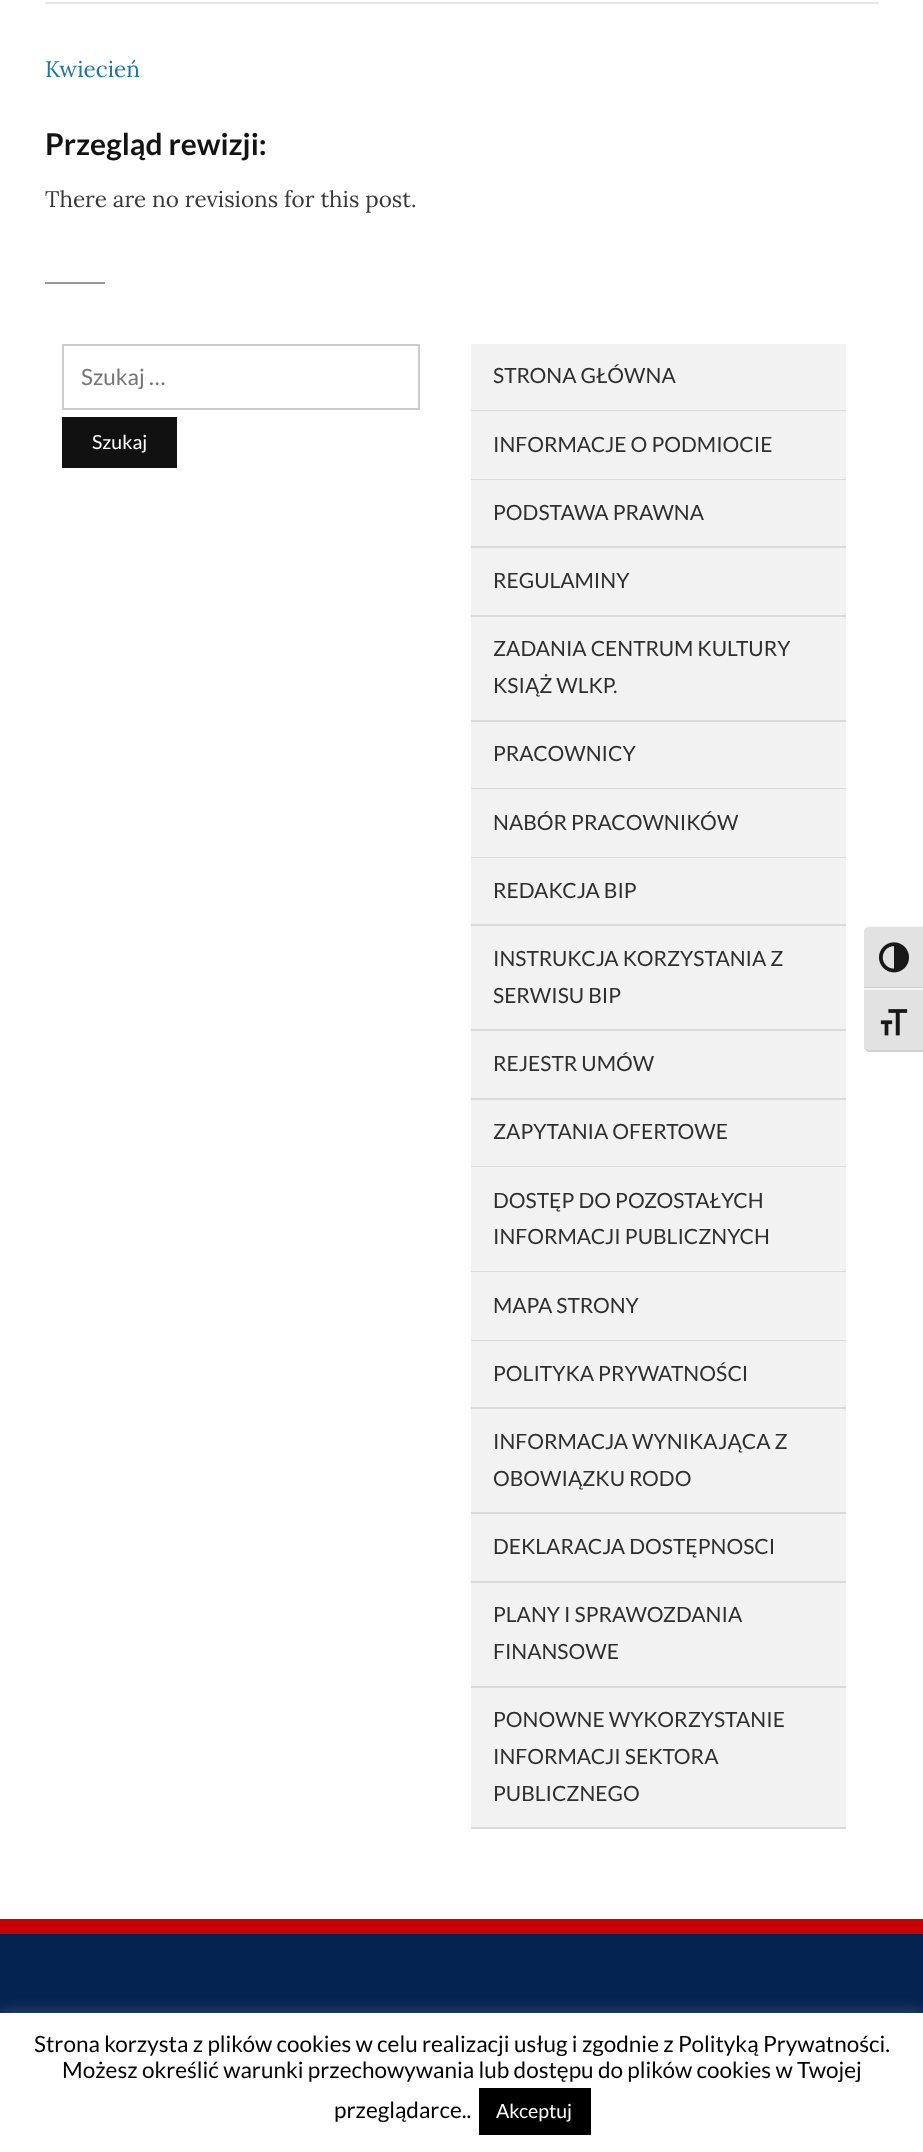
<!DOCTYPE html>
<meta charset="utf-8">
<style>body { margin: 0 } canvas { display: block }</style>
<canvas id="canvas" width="923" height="2152"></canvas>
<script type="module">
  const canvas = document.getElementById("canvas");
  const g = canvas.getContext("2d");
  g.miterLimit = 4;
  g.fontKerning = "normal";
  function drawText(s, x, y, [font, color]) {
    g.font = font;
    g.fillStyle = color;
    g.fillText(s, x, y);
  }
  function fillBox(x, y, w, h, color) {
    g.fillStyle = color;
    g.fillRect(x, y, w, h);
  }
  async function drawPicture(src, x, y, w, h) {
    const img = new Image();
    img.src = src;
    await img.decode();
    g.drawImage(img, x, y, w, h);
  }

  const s1 = ["22.5px Lora", "#1E74A9"];
  const s2 = ["bold 30px Lato", "#131313"];
  const s3 = ["22.5px Lora", "#383838"];
  const s4 = ["22.5px Lato", "#757575"];
  const s5 = ["19.5px Lato", "#FFFFFF"];
  const s6 = ["21px Lato", "#2F2F2F"];
  const s7 = ["22.5px Lato", "#000000"];

  fillBox(0, 0, 923, 2152, "#042351");
  fillBox(0, 0, 923, 1919, "#FFFFFF");
  fillBox(45, 2, 834, 2, "#E6E6E6");
  drawText("Kwiecień", 45, 77, s1);
  drawText("Przegląd rewizji:", 45, 155, s2);
  drawText("There are no revisions for this post.", 45, 207, s3);
  fillBox(45, 282, 60, 2, "#999999");
  g.strokeStyle = "#CCCCCC";
  g.lineWidth = 2;
  g.strokeRect(63, 345, 356, 64);
  drawText("Szukaj …", 81, 385, s4);
  fillBox(62, 417, 115, 51, "#111111");
  drawText("Szukaj", 92, 449, s5);
  fillBox(471, 344, 375, 66, "#F2F2F2");
  fillBox(471, 410, 375, 1, "#DADADA");
  drawText("STRONA GŁÓWNA", 493, 383, s6);
  fillBox(471, 411, 375, 68, "#F2F2F2");
  fillBox(471, 479, 375, 1, "#DADADA");
  drawText("INFORMACJE O PODMIOCIE", 493, 452, s6);
  fillBox(471, 480, 375, 66, "#F2F2F2");
  fillBox(471, 546, 375, 2, "#DADADA");
  drawText("PODSTAWA PRAWNA", 493, 520, s6);
  fillBox(471, 548, 375, 67, "#F2F2F2");
  fillBox(471, 615, 375, 2, "#DADADA");
  drawText("REGULAMINY", 493, 588, s6);
  fillBox(471, 617, 375, 103, "#F2F2F2");
  fillBox(471, 720, 375, 2, "#DADADA");
  drawText("ZADANIA CENTRUM KULTURY", 493, 656, s6);
  drawText("KSIĄŻ WLKP.", 493, 693, s6);
  fillBox(471, 722, 375, 66, "#F2F2F2");
  fillBox(471, 788, 375, 1, "#DADADA");
  drawText("PRACOWNICY", 493, 761, s6);
  fillBox(471, 789, 375, 68, "#F2F2F2");
  fillBox(471, 857, 375, 1, "#DADADA");
  drawText("NABÓR PRACOWNIKÓW", 493, 830, s6);
  fillBox(471, 858, 375, 66, "#F2F2F2");
  fillBox(471, 924, 375, 2, "#DADADA");
  drawText("REDAKCJA BIP", 493, 898, s6);
  fillBox(471, 926, 375, 103, "#F2F2F2");
  fillBox(471, 1029, 375, 2, "#DADADA");
  drawText("INSTRUKCJA KORZYSTANIA Z", 493, 966, s6);
  drawText("SERWISU BIP", 493, 1003, s6);
  fillBox(471, 1031, 375, 67, "#F2F2F2");
  fillBox(471, 1098, 375, 2, "#DADADA");
  drawText("REJESTR UMÓW", 493, 1071, s6);
  fillBox(471, 1100, 375, 66, "#F2F2F2");
  fillBox(471, 1166, 375, 1, "#DADADA");
  drawText("ZAPYTANIA OFERTOWE", 493, 1139, s6);
  fillBox(471, 1167, 375, 104, "#F2F2F2");
  fillBox(471, 1271, 375, 1, "#DADADA");
  drawText("DOSTĘP DO POZOSTAŁYCH", 493, 1208, s6);
  drawText("INFORMACJI PUBLICZNYCH", 493, 1244, s6);
  fillBox(471, 1272, 375, 68, "#F2F2F2");
  fillBox(471, 1340, 375, 1, "#DADADA");
  drawText("MAPA STRONY", 493, 1313, s6);
  fillBox(471, 1341, 375, 66, "#F2F2F2");
  fillBox(471, 1407, 375, 2, "#DADADA");
  drawText("POLITYKA PRYWATNOŚCI", 493, 1381, s6);
  fillBox(471, 1409, 375, 103, "#F2F2F2");
  fillBox(471, 1512, 375, 2, "#DADADA");
  drawText("INFORMACJA WYNIKAJĄCA Z", 493, 1449, s6);
  drawText("OBOWIĄZKU RODO", 493, 1486, s6);
  fillBox(471, 1514, 375, 67, "#F2F2F2");
  fillBox(471, 1581, 375, 2, "#DADADA");
  drawText("DEKLARACJA DOSTĘPNOSCI", 493, 1554, s6);
  fillBox(471, 1583, 375, 103, "#F2F2F2");
  fillBox(471, 1686, 375, 2, "#DADADA");
  drawText("PLANY I SPRAWOZDANIA", 493, 1622, s6);
  drawText("FINANSOWE", 493, 1659, s6);
  fillBox(471, 1688, 375, 139, "#F2F2F2");
  fillBox(471, 1827, 375, 2, "#DADADA");
  drawText("PONOWNE WYKORZYSTANIE", 493, 1727, s6);
  drawText("INFORMACJI SEKTORA", 493, 1764, s6);
  drawText("PUBLICZNEGO", 493, 1801, s6);
  fillBox(0, 1919, 923, 15, "#C70000");
  g.fillStyle = "#E2E2E2";
  g.beginPath();
  g.moveTo(870, 926);
  g.lineTo(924, 926);
  g.lineTo(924, 989);
  g.lineTo(864, 989);
  g.lineTo(864, 932);
  g.bezierCurveTo(864, 928.5, 866.5, 926, 870, 926);
  g.closePath();
  g.fill();
  g.fillStyle = "#F5F5F5";
  g.beginPath();
  g.moveTo(870, 926);
  g.lineTo(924, 926);
  g.lineTo(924, 927);
  g.lineTo(870, 927);
  g.bezierCurveTo(867, 927, 864, 929, 864, 932);
  g.bezierCurveTo(864, 928, 867, 926, 870, 926);
  g.closePath();
  g.fill();
  fillBox(864, 987, 59, 1, "#D2D2D2");
  await drawPicture("pic1.png", 879, 942, 30, 31);
  g.fillStyle = "#E2E2E2";
  g.beginPath();
  g.moveTo(864, 989);
  g.lineTo(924, 989);
  g.lineTo(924, 1052);
  g.lineTo(870, 1052);
  g.bezierCurveTo(866.5, 1052, 864, 1049.5, 864, 1046);
  g.closePath();
  g.fill();
  fillBox(864, 988, 59, 2, "#F5F5F5");
  g.fillStyle = "#D2D2D2";
  g.beginPath();
  g.moveTo(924, 1052);
  g.lineTo(868, 1052);
  g.bezierCurveTo(866, 1051, 864, 1048, 864, 1046);
  g.bezierCurveTo(864, 1048, 867, 1050, 870, 1050);
  g.lineTo(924, 1050);
  g.closePath();
  g.fill();
  await drawPicture("pic2.png", 880, 1009, 28, 27);
  g.fillStyle = "rgba(172, 171, 171, 0.3)";
  g.filter = "blur(7.5px)";
  g.beginPath();
  g.rect(0, 2012, 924, 139);
  g.fill();
  g.filter = "none";
  fillBox(0, 2013, 923, 139, "#FFFFFF");
  drawText("Strona korzysta z plików cookies w celu realizacji usług i zgodnie z Polityką Prywatności.", 34, 2052, s7);
  drawText("Możesz określić warunki przechowywania lub dostępu do plików cookies w Twojej", 62, 2078, s7);
  drawText("przeglądarce..", 334, 2118, s7);
  fillBox(479, 2088, 112, 47, "#000000");
  drawText("Akceptuj", 496, 2118, s5);
</script>
